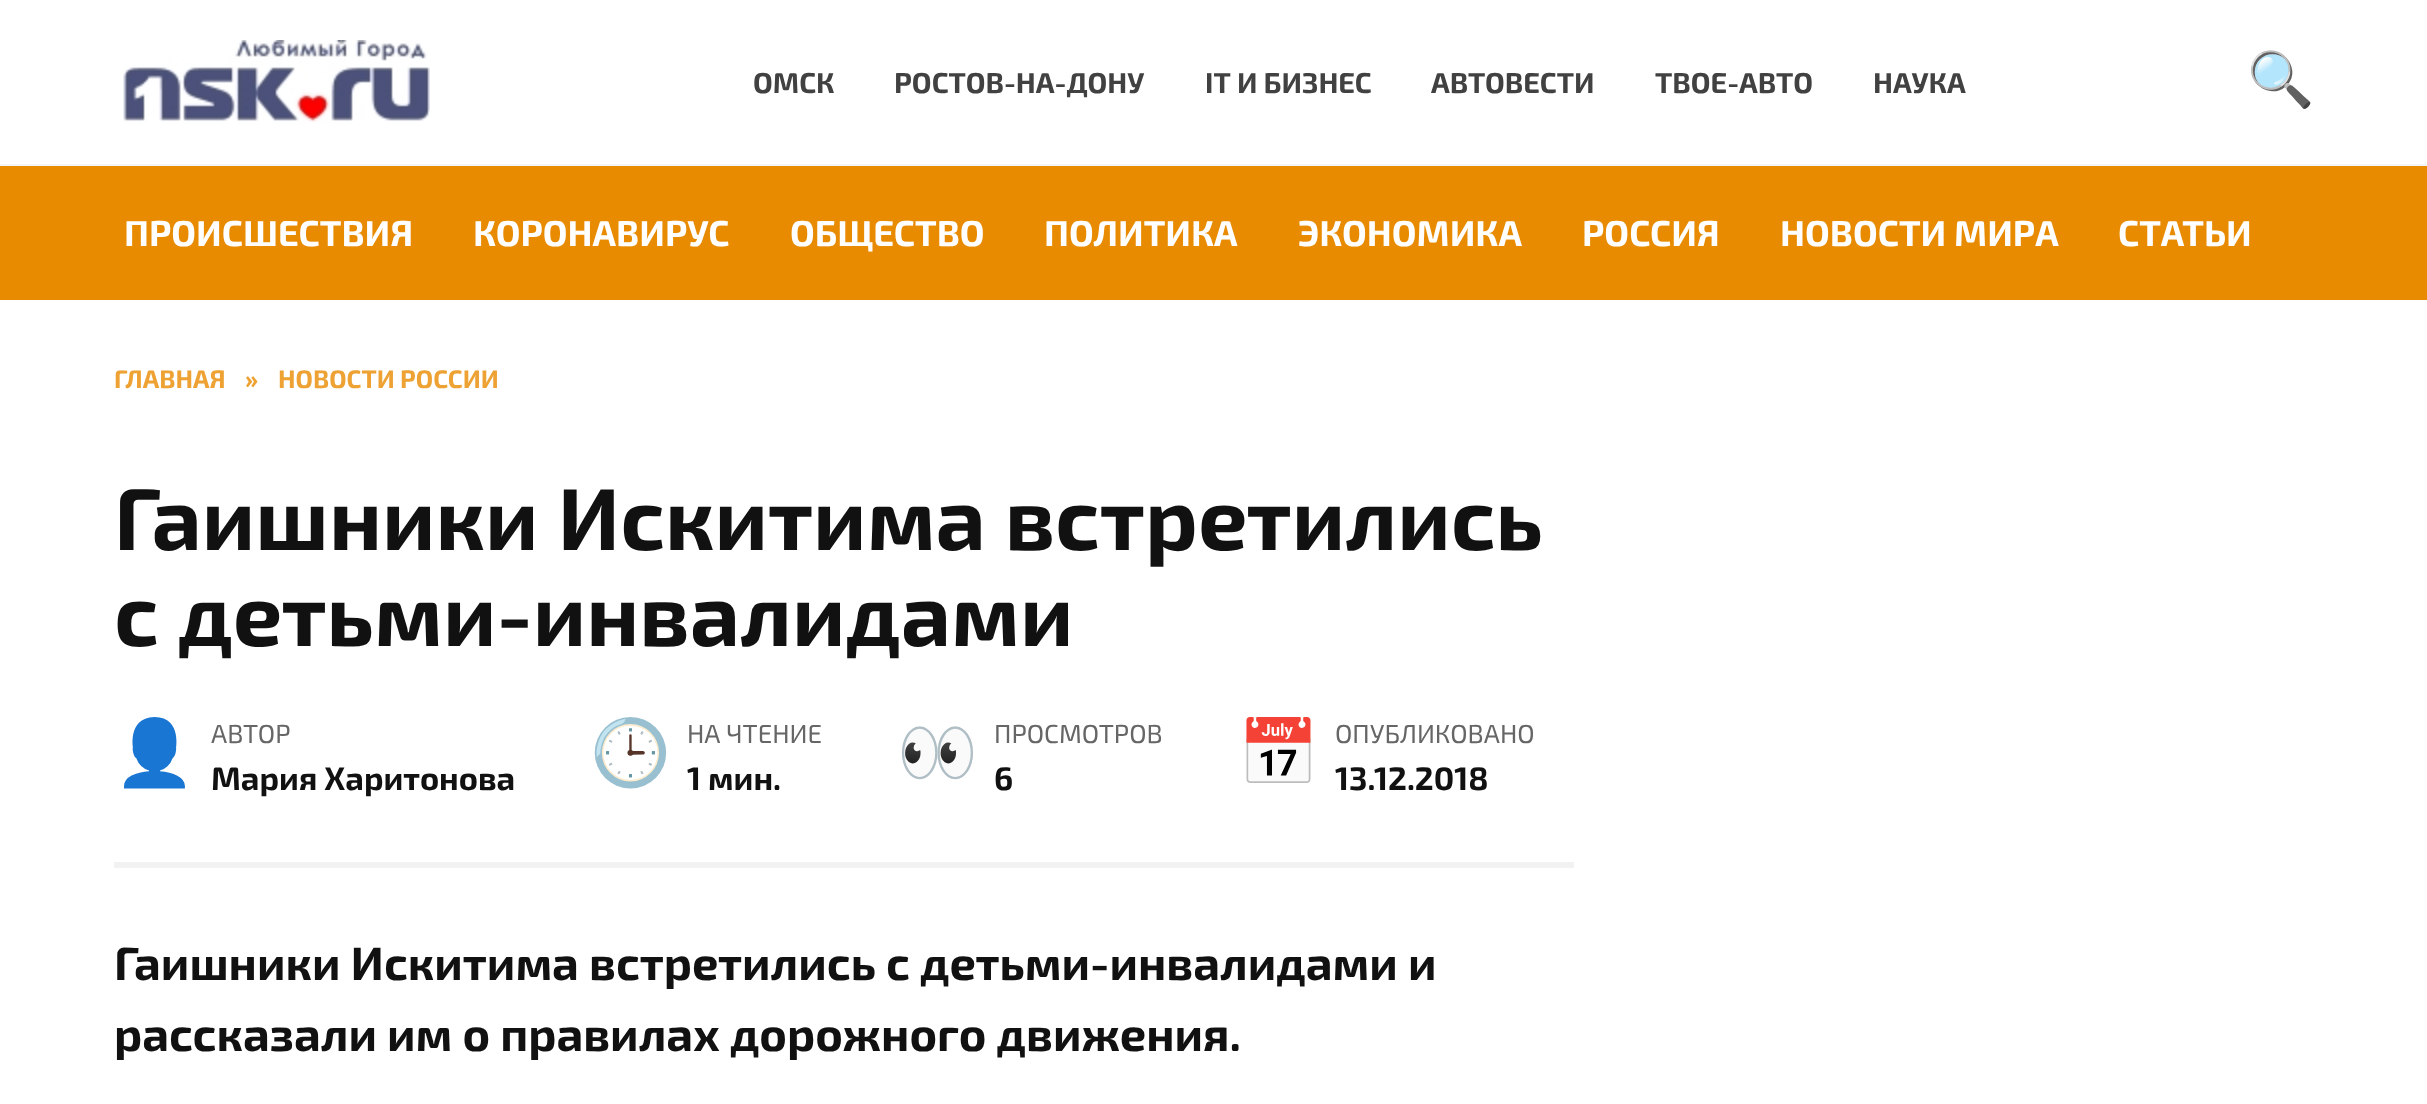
<!DOCTYPE html>
<meta charset="utf-8">
<style>body { margin: 0 } canvas { display: block }</style>
<canvas id="canvas" width="2427" height="1104"></canvas>
<script type="module">
  const canvas = document.getElementById("canvas");
  const g = canvas.getContext("2d");
  g.miterLimit = 4;
  g.fontKerning = "normal";
  function drawText(s, x, y, [font, color]) {
    g.font = font;
    g.fillStyle = color;
    g.fillText(s, x, y);
  }
  function fillBox(x, y, w, h, color) {
    g.fillStyle = color;
    g.fillRect(x, y, w, h);
  }
  async function drawPicture(src, x, y, w, h) {
    const img = new Image();
    img.src = src;
    await img.decode();
    g.drawImage(img, x, y, w, h);
  }

  const s1 = ["bold 28.75px 'Exo 2'", "#414141"];
  const s2 = ["54px Noto Color Emoji", "#111111"];
  const s3 = ["bold 36px 'Exo 2'", "#FFFFFF"];
  const s4 = ["bold 25.25px 'Exo 2'", "#EDA233"];
  const s5 = ["bold 87.75px 'Exo 2'", "#111111"];
  const s6 = ["65px Noto Color Emoji", "#E88B00"];
  const s7 = ["26px 'Exo 2'", "#666666"];
  const s8 = ["bold 32.5px 'Exo 2'", "#111111"];
  const s9 = ["bold 46.8px 'Exo 2'", "#111111"];

  fillBox(0, 0, 2427, 1104, "#FFFFFF");
  fillBox(0, 164, 2427, 2, "#F2F5F9");
  await drawPicture("pic1.png", 123, 40, 307, 83);
  drawText("ОМСК", 753, 93, s1);
  drawText("РОСТОВ-НА-ДОНУ", 894, 93, s1);
  drawText("IT И БИЗНЕС", 1205, 93, s1);
  drawText("АВТОВЕСТИ", 1431, 93, s1);
  drawText("ТВОЕ-АВТО", 1655, 93, s1);
  drawText("НАУКА", 1873, 93, s1);
  drawText("🔍", 2247, 98, s2);
  fillBox(0, 166, 2427, 134, "#E88B00");
  drawText("ПРОИСШЕСТВИЯ", 124, 246, s3);
  drawText("КОРОНАВИРУС", 473, 246, s3);
  drawText("ОБЩЕСТВО", 790, 246, s3);
  drawText("ПОЛИТИКА", 1044, 246, s3);
  drawText("ЭКОНОМИКА", 1298, 246, s3);
  drawText("РОССИЯ", 1582, 246, s3);
  drawText("НОВОСТИ МИРА", 1780, 246, s3);
  drawText("СТАТЬИ", 2118, 246, s3);
  drawText("ГЛАВНАЯ", 114, 388, s4);
  drawText("»", 245, 388, s4);
  drawText("НОВОСТИ РОССИИ", 278, 388, s4);
  drawText("Гаишники Искитима встретились", 114, 550, s5);
  drawText("с детьми-инвалидами", 114, 646, s5);
  fillBox(114, 862, 1460, 6, "#F2F2F2");
  drawText("👤", 114, 775, s6);
  drawText("АВТОР", 211, 743, s7);
  drawText("Мария Харитонова", 211, 790, s8);
  drawText("🕒", 590, 775, s6);
  drawText("НА ЧТЕНИЕ", 687, 743, s7);
  drawText("1 мин.", 687, 790, s8);
  drawText("👀", 897, 775, s6);
  drawText("ПРОСМОТРОВ", 994, 743, s7);
  drawText("6", 994, 790, s8);
  drawText("📅", 1238, 775, s6);
  drawText("ОПУБЛИКОВАНО", 1335, 743, s7);
  drawText("13.12.2018", 1335, 790, s8);
  drawText("Гаишники Искитима встретились с детьми-инвалидами и", 114, 980, s9);
  drawText("рассказали им о правилах дорожного движения.", 114, 1051, s9);
</script>
